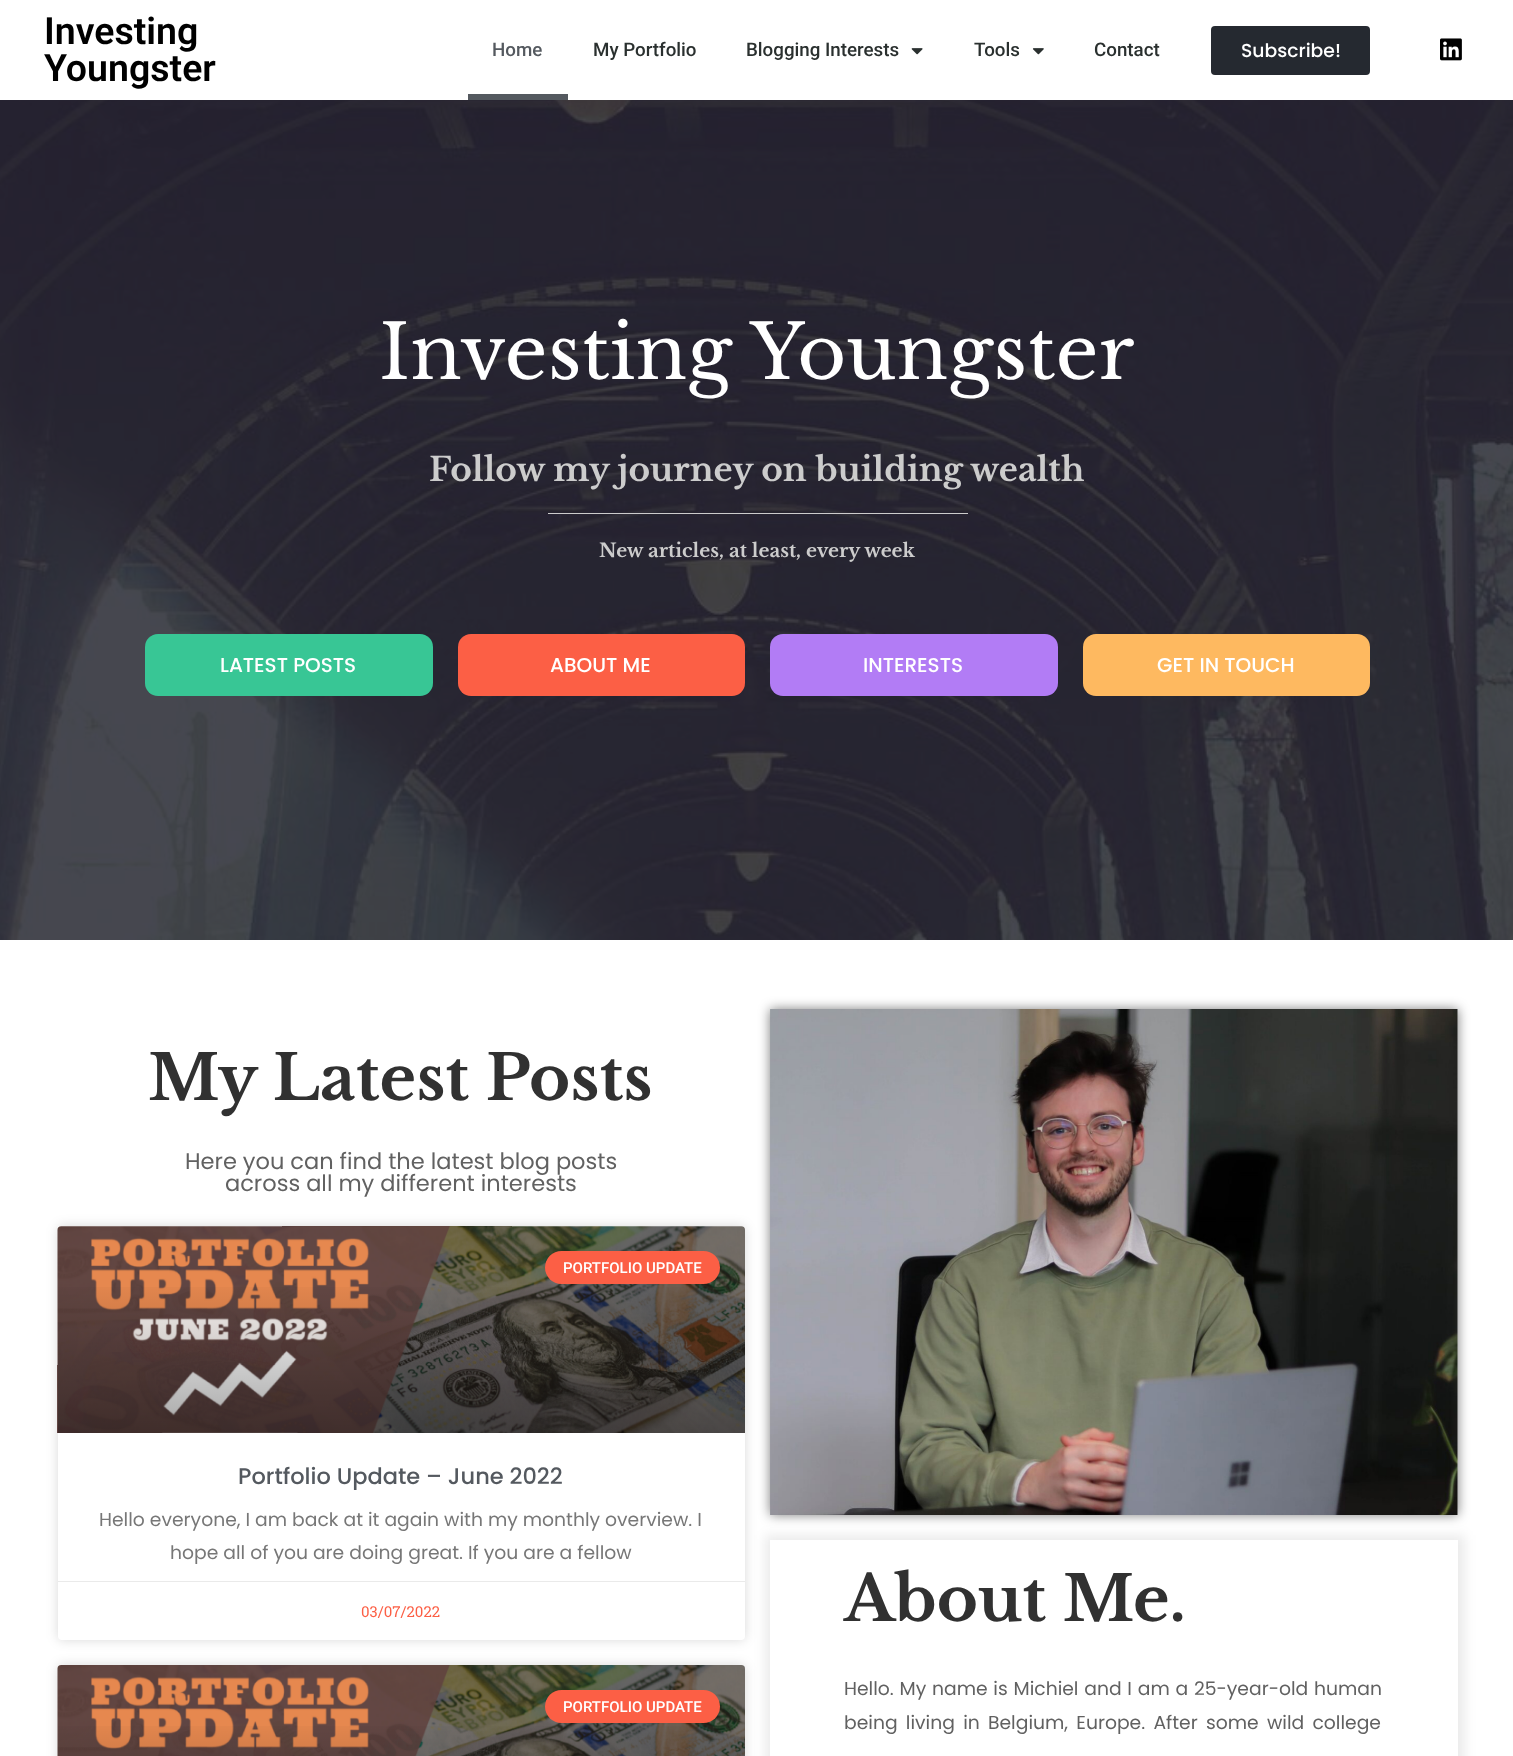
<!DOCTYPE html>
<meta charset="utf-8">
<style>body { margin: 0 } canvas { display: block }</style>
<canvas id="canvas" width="1513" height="1756"></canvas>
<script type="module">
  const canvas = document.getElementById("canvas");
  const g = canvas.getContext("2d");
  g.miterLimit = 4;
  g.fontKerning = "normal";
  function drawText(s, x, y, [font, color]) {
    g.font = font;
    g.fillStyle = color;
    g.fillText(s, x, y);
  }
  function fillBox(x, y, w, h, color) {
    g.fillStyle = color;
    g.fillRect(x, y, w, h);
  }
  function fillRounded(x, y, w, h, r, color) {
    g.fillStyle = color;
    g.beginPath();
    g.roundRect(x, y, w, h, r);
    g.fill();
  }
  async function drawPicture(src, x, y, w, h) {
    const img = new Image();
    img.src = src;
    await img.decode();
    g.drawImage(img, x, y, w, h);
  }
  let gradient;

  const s1 = ["600 37.5px Roboto", "#000000"];
  const s2 = ["500 18.75px Roboto", "#54595F"];
  const s3 = ["500 18.75px Roboto", "#2A302F"];
  const s4 = ["500 18.75px Poppins", "#FFFFFF"];
  const s5 = ["75px Libre Baskerville", "#FFFFFF"];
  const s6 = ["bold 32.8px Libre Baskerville", "#CCCCCC"];
  const s7 = ["bold 18.75px Libre Baskerville", "#CCCCCC"];
  const s8 = ["500 20px Poppins", "#FFFFFF"];
  const s9 = ["bold 62.5px Libre Baskerville", "#313131"];
  const s10 = ["22.5px Poppins", "#616161"];
  const s11 = ["500 15px Roboto", "#FFFFFF"];
  const s12 = ["500 22.5px Poppins", "#54595F"];
  const s13 = ["18.75px Poppins", "#777777"];
  const s14 = ["15px Roboto Slab", "#FC5F45"];
  const s15 = ["18.75px Poppins", "#616161"];

  fillBox(0, 0, 1513, 1756, "#FFFFFF");
  drawText("Investing", 44, 44, s1);
  drawText("Youngster", 44, 81, s1);
  drawText("Home", 492, 56, s2);
  fillBox(468, 94, 100, 6, "#54595F");
  drawText("My Portfolio", 593, 56, s3);
  drawText("Blogging Interests", 746, 56, s3);
  await drawPicture("pic1.png", 911, 48, 12, 7);
  drawText("Tools", 974, 56, s3);
  await drawPicture("pic2.png", 1032, 48, 12, 7);
  drawText("Contact", 1094, 56, s3);
  fillRounded(1211, 26, 159, 49, 4, "#252930");
  drawText("Subscribe!", 1241, 57, s4);
  await drawPicture("pic3.png", 1440, 38, 22, 23);
  await drawPicture("pic4.png", 0, 100, 1513, 840);
  drawText("Investing Youngster", 379, 379, s5);
  drawText("Follow my journey on building wealth", 429, 481, s6);
  fillBox(548, 513, 420, 1, "#CCCCCC");
  drawText("New articles, at least, every week", 599, 557, s7);
  fillRounded(145, 634, 288, 62, 13, "#38C695");
  drawText("LATEST POSTS", 220, 672, s8);
  fillRounded(458, 634, 287, 62, 13, "#FC5F45");
  drawText("ABOUT ME", 550, 672, s8);
  fillRounded(770, 634, 288, 62, 13, "#B27CF5");
  drawText("INTERESTS", 863, 672, s8);
  fillRounded(1083, 634, 287, 62, 13, "#FEB960");
  drawText("GET IN TOUCH", 1157, 672, s8);
  drawText("My Latest Posts", 148, 1100, s9);
  drawText("Here you can find the latest blog posts", 185, 1169, s10);
  drawText("across all my different interests", 225, 1191, s10);
  g.fillStyle = "rgba(0, 0, 0, 0.15)";
  g.filter = "blur(6px)";
  g.beginPath();
  g.roundRect(58, 1226, 687, 414, 4);
  g.fill();
  g.filter = "none";
  fillRounded(58, 1226, 687, 414, 4, "#FFFFFF");
  await drawPicture("pic5.png", 57, 1226, 688, 207);
  gradient = g.createLinearGradient(401, 1433, 401, 1226);
  gradient.addColorStop(0, "rgba(0, 0, 0, 0.35)");
  gradient.addColorStop(0.75, "rgba(0, 0, 0, 0)");
  g.fillStyle = gradient;
  g.fillRect(58, 1287, 687, 146);
  fillRounded(545, 1251, 175, 33, 16.5, "#FC5F45");
  drawText("PORTFOLIO UPDATE", 563, 1273, s11);
  drawText("Portfolio Update – June 2022", 238, 1484, s12);
  drawText("Hello everyone, I am back at it again with my monthly overview. I", 99, 1526, s13);
  drawText("hope all of you are doing great. If you are a fellow", 170, 1559, s13);
  fillBox(58, 1581, 687, 1, "#EAEAEA");
  drawText("03/07/2022", 361, 1617, s14);
  g.fillStyle = "rgba(0, 0, 0, 0.15)";
  g.filter = "blur(6px)";
  g.beginPath();
  g.roundRect(58, 1665, 687, 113, 4);
  g.fill();
  g.filter = "none";
  await drawPicture("pic6.png", 57, 1665, 688, 91);
  gradient = g.createLinearGradient(401, 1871, 401, 1665);
  gradient.addColorStop(0, "rgba(0, 0, 0, 0.35)");
  gradient.addColorStop(0.75, "rgba(0, 0, 0, 0)");
  g.fillStyle = gradient;
  g.fillRect(58, 1726, 687, 30);
  fillRounded(545, 1690, 175, 33, 16.5, "#FC5F45");
  drawText("PORTFOLIO UPDATE", 563, 1712, s11);
  g.fillStyle = "rgba(0, 0, 0, 0.5)";
  g.filter = "blur(6px)";
  g.beginPath();
  g.rect(770, 1009, 688, 506);
  g.fill();
  g.filter = "none";
  await drawPicture("pic7.png", 770, 1009, 688, 506);
  g.fillStyle = "rgba(0, 0, 0, 0.08)";
  g.filter = "blur(6px)";
  g.beginPath();
  g.rect(765, 1535, 700, 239);
  g.fill();
  g.filter = "none";
  fillBox(770, 1540, 688, 216, "#FFFFFF");
  drawText("About Me.", 844, 1621, s9);
  g.wordSpacing = "0.75px";
  drawText("Hello. My name is Michiel and I am a 25-year-old human", 844, 1695, s15);
  g.wordSpacing = "3.25px";
  drawText("being living in Belgium, Europe. After some wild college", 844, 1729, s15);
</script>
